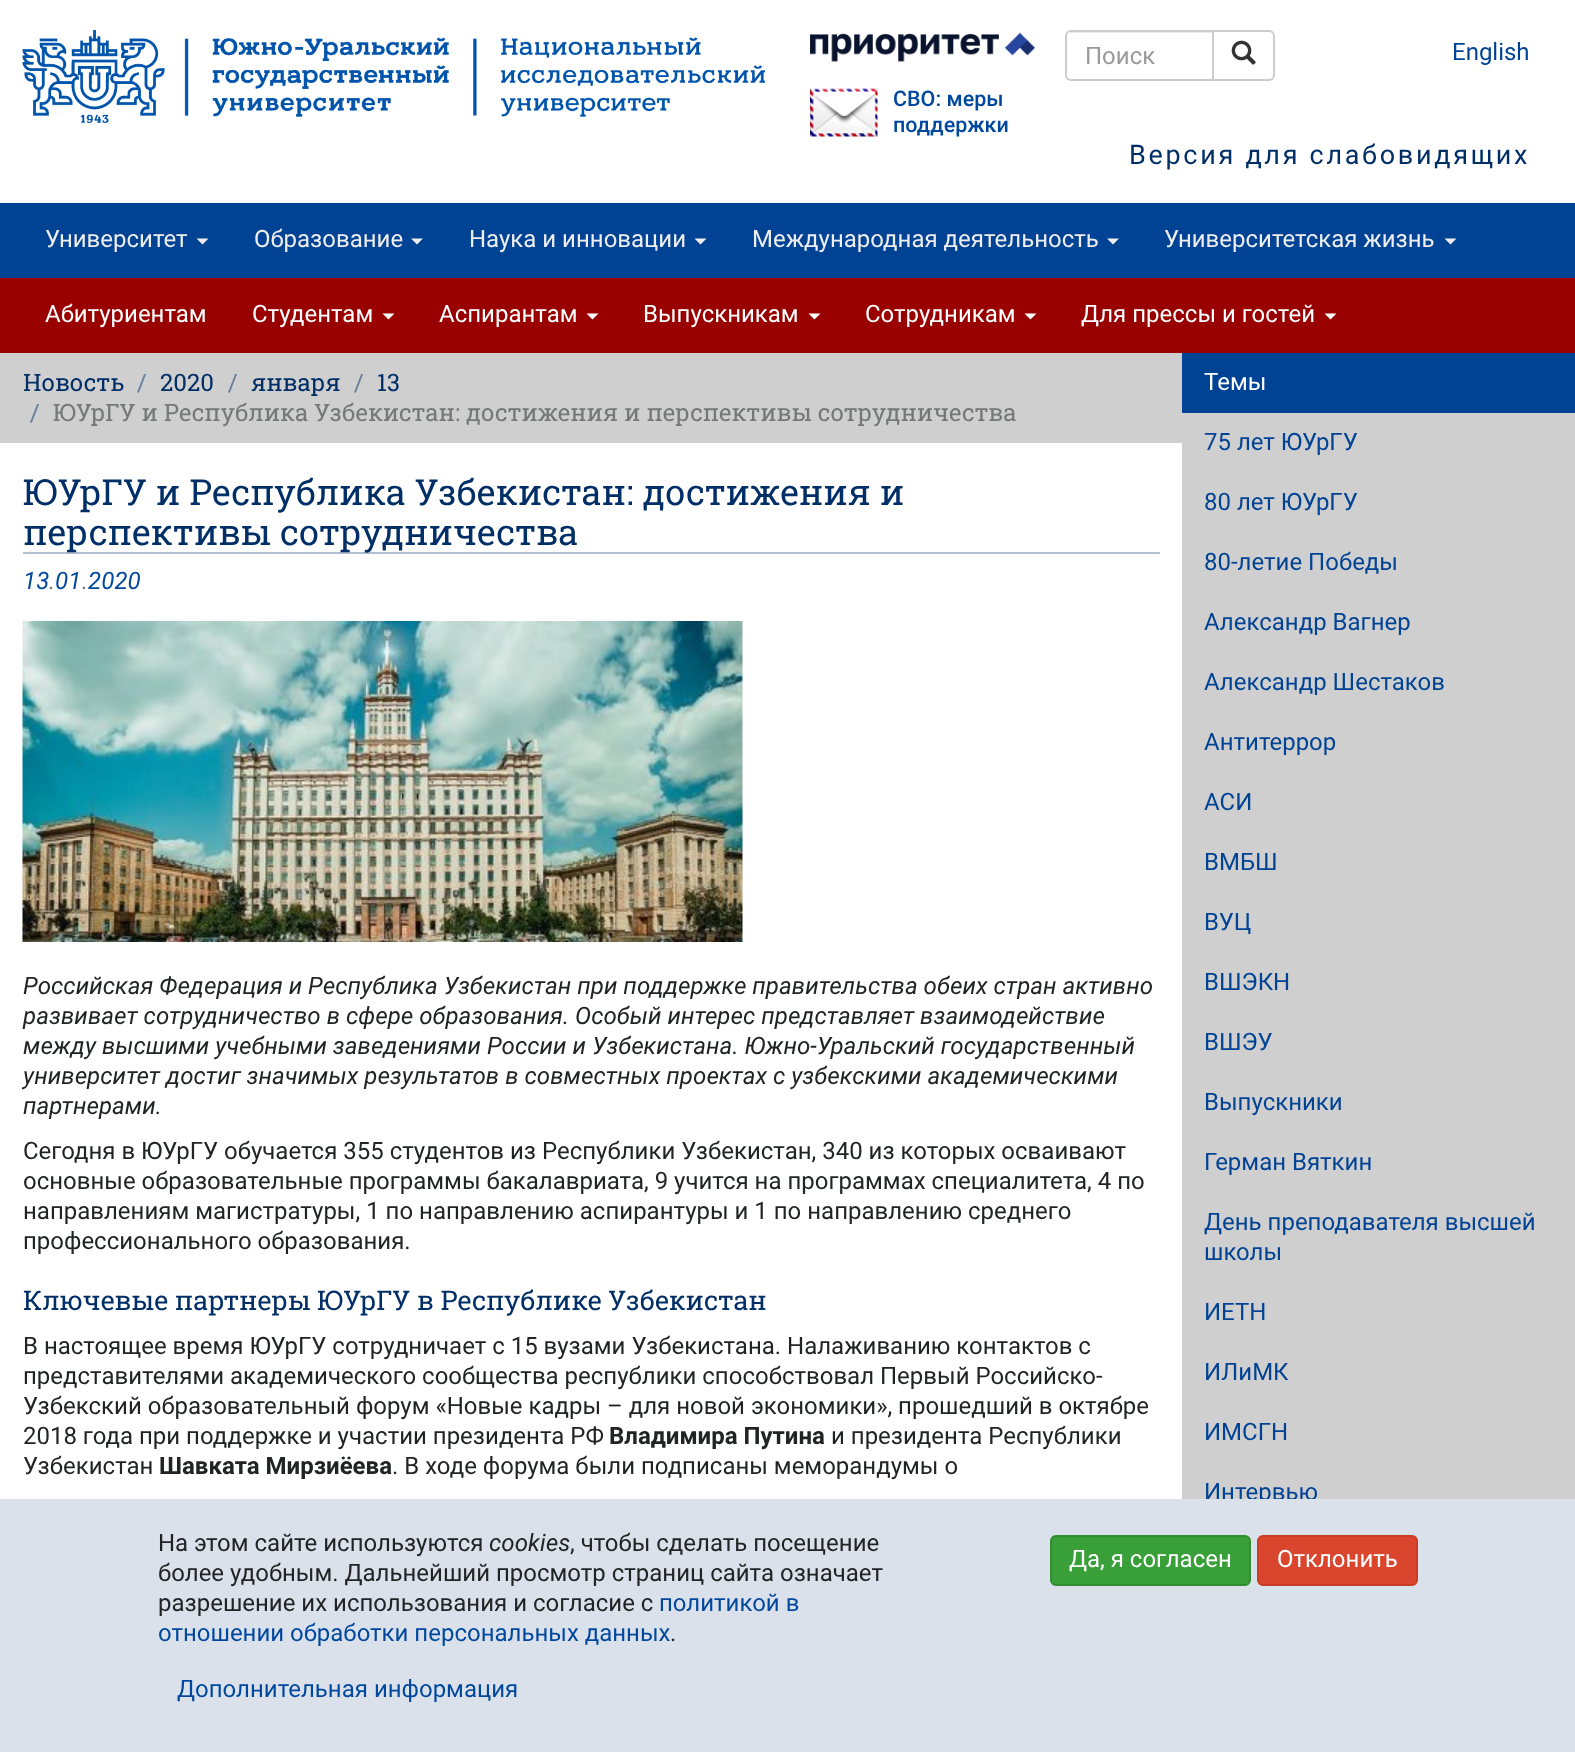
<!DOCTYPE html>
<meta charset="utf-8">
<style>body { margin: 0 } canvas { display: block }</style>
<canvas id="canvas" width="1575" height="1752"></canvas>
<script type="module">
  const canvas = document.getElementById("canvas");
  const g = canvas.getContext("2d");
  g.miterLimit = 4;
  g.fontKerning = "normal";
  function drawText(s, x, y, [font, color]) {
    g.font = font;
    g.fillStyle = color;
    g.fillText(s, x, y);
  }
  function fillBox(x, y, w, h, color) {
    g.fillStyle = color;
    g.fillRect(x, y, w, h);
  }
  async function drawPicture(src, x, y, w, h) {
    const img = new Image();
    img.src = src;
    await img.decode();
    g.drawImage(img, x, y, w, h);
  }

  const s1 = ["24px Roboto", "#999999"];
  const s2 = ["24px Roboto", "#004394"];
  const s3 = ["500 21.5px Roboto", "#00489E"];
  const s4 = ["27px Roboto", "#002E66"];
  const s5 = ["24px Roboto", "#EEEEEE"];
  const s6 = ["24px Roboto", "#FFFFFF"];
  const s7 = ["24px Roboto Slab", "#002E66"];
  const s8 = ["24px Roboto Slab", "#687F9B"];
  const s9 = ["24px Roboto Slab", "#767777"];
  const s10 = ["36px Roboto Slab", "#002E66"];
  const s11 = ["italic 24px Roboto", "#00489E"];
  const s12 = ["italic 24px Roboto", "#767777"];
  const s13 = ["italic 24px Roboto", "#222324"];
  const s14 = ["24px Roboto", "#222324"];
  const s15 = ["27px Roboto Slab", "#002E66"];
  const s16 = ["bold 24px Roboto", "#222324"];
  const s17 = ["24px Roboto", "#00489E"];

  fillBox(0, 0, 1575, 1752, "#FFFFFF");
  await drawPicture("pic1.png", 22, 30, 743, 93);
  g.beginPath();
  g.roundRect(1213, 31, 61, 49, [0, 5, 5, 0]);
  g.strokeStyle = "#CCCCCC";
  g.lineWidth = 2;
  g.stroke();
  g.beginPath();
  g.roundRect(1065, 30, 149, 51, [6, 0, 0, 6]);
  g.fill();
  g.fillStyle = "#ECECEC";
  g.beginPath();
  g.moveTo(1071, 33);
  g.lineTo(1212, 33);
  g.lineTo(1212, 32);
  g.lineTo(1072, 32);
  g.bezierCurveTo(1070, 32, 1069, 33, 1068, 34);
  g.closePath();
  g.fill();
  g.beginPath();
  g.roundRect(1066, 31, 147, 49, [5, 0, 0, 5]);
  g.stroke();
  drawText("Поиск", 1085, 64, s1);
  await drawPicture("pic2.png", 1231, 40, 25, 25);
  drawText("English", 1452, 60, s2);
  await drawPicture("pic3.png", 810, 32, 225, 30);
  await drawPicture("pic4.png", 810, 88, 68, 49);
  drawText("СВО: меры", 893, 106, s3);
  drawText("поддержки", 893, 132, s3);
  g.letterSpacing = "2.7px";
  drawText("Версия для слабовидящих", 1129, 164, s4);
  fillBox(0, 203, 1575, 75, "#004394");
  g.letterSpacing = "0px";
  drawText("Университет", 45, 247, s5);
  g.beginPath();
  g.moveTo(196.5, 238.5);
  g.lineTo(208.5, 238.5);
  g.lineTo(202.5, 244.5);
  g.closePath();
  g.fill();
  drawText("Образование", 254, 247, s5);
  g.beginPath();
  g.moveTo(411, 238.5);
  g.lineTo(423, 238.5);
  g.lineTo(417, 244.5);
  g.closePath();
  g.fill();
  drawText("Наука и инновации", 469, 247, s5);
  g.beginPath();
  g.moveTo(694.5, 238.5);
  g.lineTo(706.5, 238.5);
  g.lineTo(700.5, 244.5);
  g.closePath();
  g.fill();
  drawText("Международная деятельность", 752, 247, s5);
  g.beginPath();
  g.moveTo(1107, 238.5);
  g.lineTo(1119, 238.5);
  g.lineTo(1113, 244.5);
  g.closePath();
  g.fill();
  drawText("Университетская жизнь", 1164, 247, s5);
  g.beginPath();
  g.moveTo(1444.5, 238.5);
  g.lineTo(1456.5, 238.5);
  g.lineTo(1450.5, 244.5);
  g.closePath();
  g.fill();
  fillBox(0, 278, 1575, 75, "#990000");
  drawText("Абитуриентам", 45, 322, s6);
  drawText("Студентам", 252, 322, s6);
  g.beginPath();
  g.moveTo(382.5, 313.5);
  g.lineTo(394.5, 313.5);
  g.lineTo(388.5, 319.5);
  g.closePath();
  g.fill();
  drawText("Аспирантам", 439, 322, s6);
  g.beginPath();
  g.moveTo(586.5, 313.5);
  g.lineTo(598.5, 313.5);
  g.lineTo(592.5, 319.5);
  g.closePath();
  g.fill();
  drawText("Выпускникам", 643, 322, s6);
  g.beginPath();
  g.moveTo(808.5, 313.5);
  g.lineTo(820.5, 313.5);
  g.lineTo(814.5, 319.5);
  g.closePath();
  g.fill();
  drawText("Сотрудникам", 865, 322, s6);
  g.beginPath();
  g.moveTo(1024.5, 313.5);
  g.lineTo(1036.5, 313.5);
  g.lineTo(1030.5, 319.5);
  g.closePath();
  g.fill();
  drawText("Для прессы и гостей", 1081, 322, s6);
  g.beginPath();
  g.moveTo(1324.5, 313.5);
  g.lineTo(1336.5, 313.5);
  g.lineTo(1330.5, 319.5);
  g.closePath();
  g.fill();
  fillBox(0, 353, 1182, 90, "#CFCFCF");
  drawText("Новость", 23, 391, s7);
  drawText("/", 137, 391, s8);
  drawText("2020", 160, 391, s7);
  drawText("/", 228, 391, s8);
  drawText("января", 251, 391, s7);
  drawText("/", 354, 391, s8);
  drawText("13", 377, 391, s7);
  drawText("/", 30, 421, s8);
  drawText("ЮУрГУ и Республика Узбекистан: достижения и перспективы сотрудничества", 53, 421, s9);
  fillBox(23, 552, 1137, 2, "#B3C0D1");
  drawText("ЮУрГУ и Республика Узбекистан: достижения и", 23, 505, s10);
  drawText("перспективы сотрудничества", 23, 545, s10);
  drawText("13", 23, 589, s11);
  drawText(".", 49, 589, s12);
  drawText("01", 55, 589, s11);
  drawText(".", 82, 589, s12);
  drawText("2020", 88, 589, s11);
  await drawPicture("pic5.png", 22, 621, 721, 321);
  drawText("Российская Федерация и Республика Узбекистан при поддержке правительства обеих стран активно", 23, 994, s13);
  drawText("развивает сотрудничество в сфере образования. Особый интерес представляет взаимодействие", 23, 1024, s13);
  drawText("между высшими учебными заведениями России и Узбекистана. Южно-Уральский государственный", 23, 1054, s13);
  drawText("университет достиг значимых результатов в совместных проектах с узбекскими академическими", 23, 1084, s13);
  drawText("партнерами.", 23, 1114, s13);
  drawText("Сегодня в ЮУрГУ обучается 355 студентов из Республики Узбекистан, 340 из которых осваивают", 23, 1159, s14);
  drawText("основные образовательные программы бакалавриата, 9 учится на программах специалитета, 4 по", 23, 1189, s14);
  drawText("направлениям магистратуры, 1 по направлению аспирантуры и 1 по направлению среднего", 23, 1219, s14);
  drawText("профессионального образования.", 23, 1249, s14);
  drawText("Ключевые партнеры ЮУрГУ в Республике Узбекистан", 23, 1310, s15);
  drawText("В настоящее время ЮУрГУ сотрудничает с 15 вузами Узбекистана. Налаживанию контактов с", 23, 1354, s14);
  drawText("представителями академического сообщества республики способствовал Первый Российско-", 23, 1384, s14);
  drawText("Узбекский образовательный форум «Новые кадры – для новой экономики», прошедший в октябре", 23, 1414, s14);
  drawText("2018 года при поддержке и участии президента РФ", 23, 1444, s14);
  drawText("Владимира Путина", 609, 1444, s16);
  drawText("и президента Республики", 831, 1444, s14);
  drawText("Узбекистан", 23, 1474, s14);
  drawText("Шавката Мирзиёева", 159, 1474, s16);
  drawText(". В ходе форума были подписаны меморандумы о", 392, 1474, s14);
  fillBox(1182, 413, 393, 1086, "#CFCFCF");
  fillBox(1182, 353, 393, 60, "#004394");
  drawText("Темы", 1204, 390, s6);
  drawText("75 лет ЮУрГУ", 1204, 450, s2);
  drawText("80 лет ЮУрГУ", 1204, 510, s2);
  drawText("80-летие Победы", 1204, 570, s2);
  drawText("Александр Вагнер", 1204, 630, s2);
  drawText("Александр Шестаков", 1204, 690, s2);
  drawText("Антитеррор", 1204, 750, s2);
  drawText("АСИ", 1204, 810, s2);
  drawText("ВМБШ", 1204, 870, s2);
  drawText("ВУЦ", 1204, 930, s2);
  drawText("ВШЭКН", 1204, 990, s2);
  drawText("ВШЭУ", 1204, 1050, s2);
  drawText("Выпускники", 1204, 1110, s2);
  drawText("Герман Вяткин", 1204, 1170, s2);
  drawText("День преподавателя высшей", 1204, 1230, s2);
  drawText("школы", 1204, 1260, s2);
  drawText("ИЕТН", 1204, 1320, s2);
  drawText("ИЛиМК", 1204, 1380, s2);
  drawText("ИМСГН", 1204, 1440, s2);
  drawText("Интервью", 1204, 1500, s2);
  fillBox(0, 1499, 1575, 253, "#DAE1EA");
  drawText("На этом сайте используются", 158, 1551, s14);
  drawText("cookies", 489, 1551, s13);
  drawText(", чтобы сделать посещение", 570, 1551, s14);
  drawText("более удобным. Дальнейший просмотр страниц сайта означает", 158, 1581, s14);
  drawText("разрешение их использования и согласие с", 158, 1611, s14);
  drawText("политикой в", 659, 1611, s17);
  drawText("отношении обработки персональных данных", 158, 1641, s17);
  drawText(".", 670, 1641, s14);
  drawText("Дополнительная информация", 177, 1697, s17);
  g.fillStyle = "#39A039";
  g.beginPath();
  g.roundRect(1051, 1536, 199, 49, 5);
  g.fill();
  g.strokeStyle = "#328D32";
  g.stroke();
  drawText("Да, я согласен", 1069, 1567, s6);
  g.fillStyle = "#DA462D";
  g.beginPath();
  g.roundRect(1258, 1536, 159, 49, 5);
  g.fill();
  g.strokeStyle = "#CA3C24";
  g.stroke();
  drawText("Отклонить", 1277, 1567, s6);
</script>
